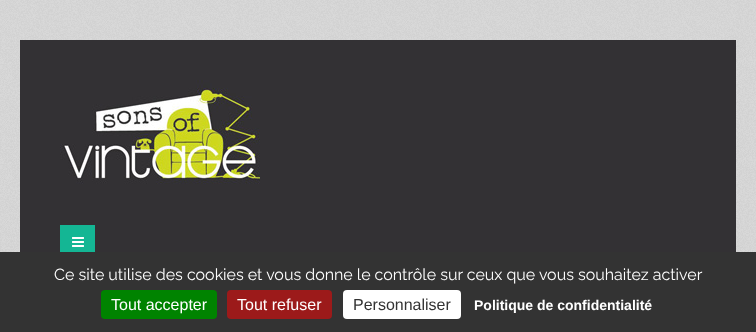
<!DOCTYPE html>
<meta charset="utf-8">
<style>body { margin: 0 } canvas { display: block }</style>
<canvas id="canvas" width="756" height="332"></canvas>
<script type="module">
  const canvas = document.getElementById("canvas");
  const g = canvas.getContext("2d");
  g.miterLimit = 4;
  g.fontKerning = "normal";
  function drawText(s, x, y, [font, color]) {
    g.font = font;
    g.fillStyle = color;
    g.fillText(s, x, y);
  }
  function fillBox(x, y, w, h, color) {
    g.fillStyle = color;
    g.fillRect(x, y, w, h);
  }
  function fillRounded(x, y, w, h, r, color) {
    g.fillStyle = color;
    g.beginPath();
    g.roundRect(x, y, w, h, r);
    g.fill();
  }
  async function drawPicture(src, x, y, w, h) {
    const img = new Image();
    img.src = src;
    await img.decode();
    g.drawImage(img, x, y, w, h);
  }

  const s1 = ["16px Raleway", "#FFFFFF"];
  const s2 = ["16px Liberation Sans", "#FFFFFF"];
  const s3 = ["16px Liberation Sans", "#333333"];
  const s4 = ["bold 14px Liberation Sans", "#FFFFFF"];

  fillBox(0, 0, 756, 332, "#D8D8D8");
  await drawPicture("pic1.png", 0, 0, 756, 252);
  fillBox(20, 40, 716, 212, "#333134");
  await drawPicture("pic2.png", 60, 80, 200, 104);
  fillBox(60, 225, 35, 27, "#14B694");
  await drawPicture("pic3.png", 72, 237, 12, 10);
  fillBox(0, 252, 756, 80, "#333333");
  drawText("Ce site utilise des cookies et vous donne le contrôle sur ceux que vous souhaitez activer", 54, 280, s1);
  fillRounded(101, 290, 116, 29, 4, "#008300");
  drawText("Tout accepter", 111, 310, s2);
  fillRounded(227, 290, 105, 29, 4, "#9C1A1A");
  drawText("Tout refuser", 237, 310, s2);
  fillRounded(343, 290, 118, 29, 4, "#FFFFFF");
  drawText("Personnaliser", 353, 310, s3);
  drawText("Politique de confidentialité", 474, 310, s4);
</script>
